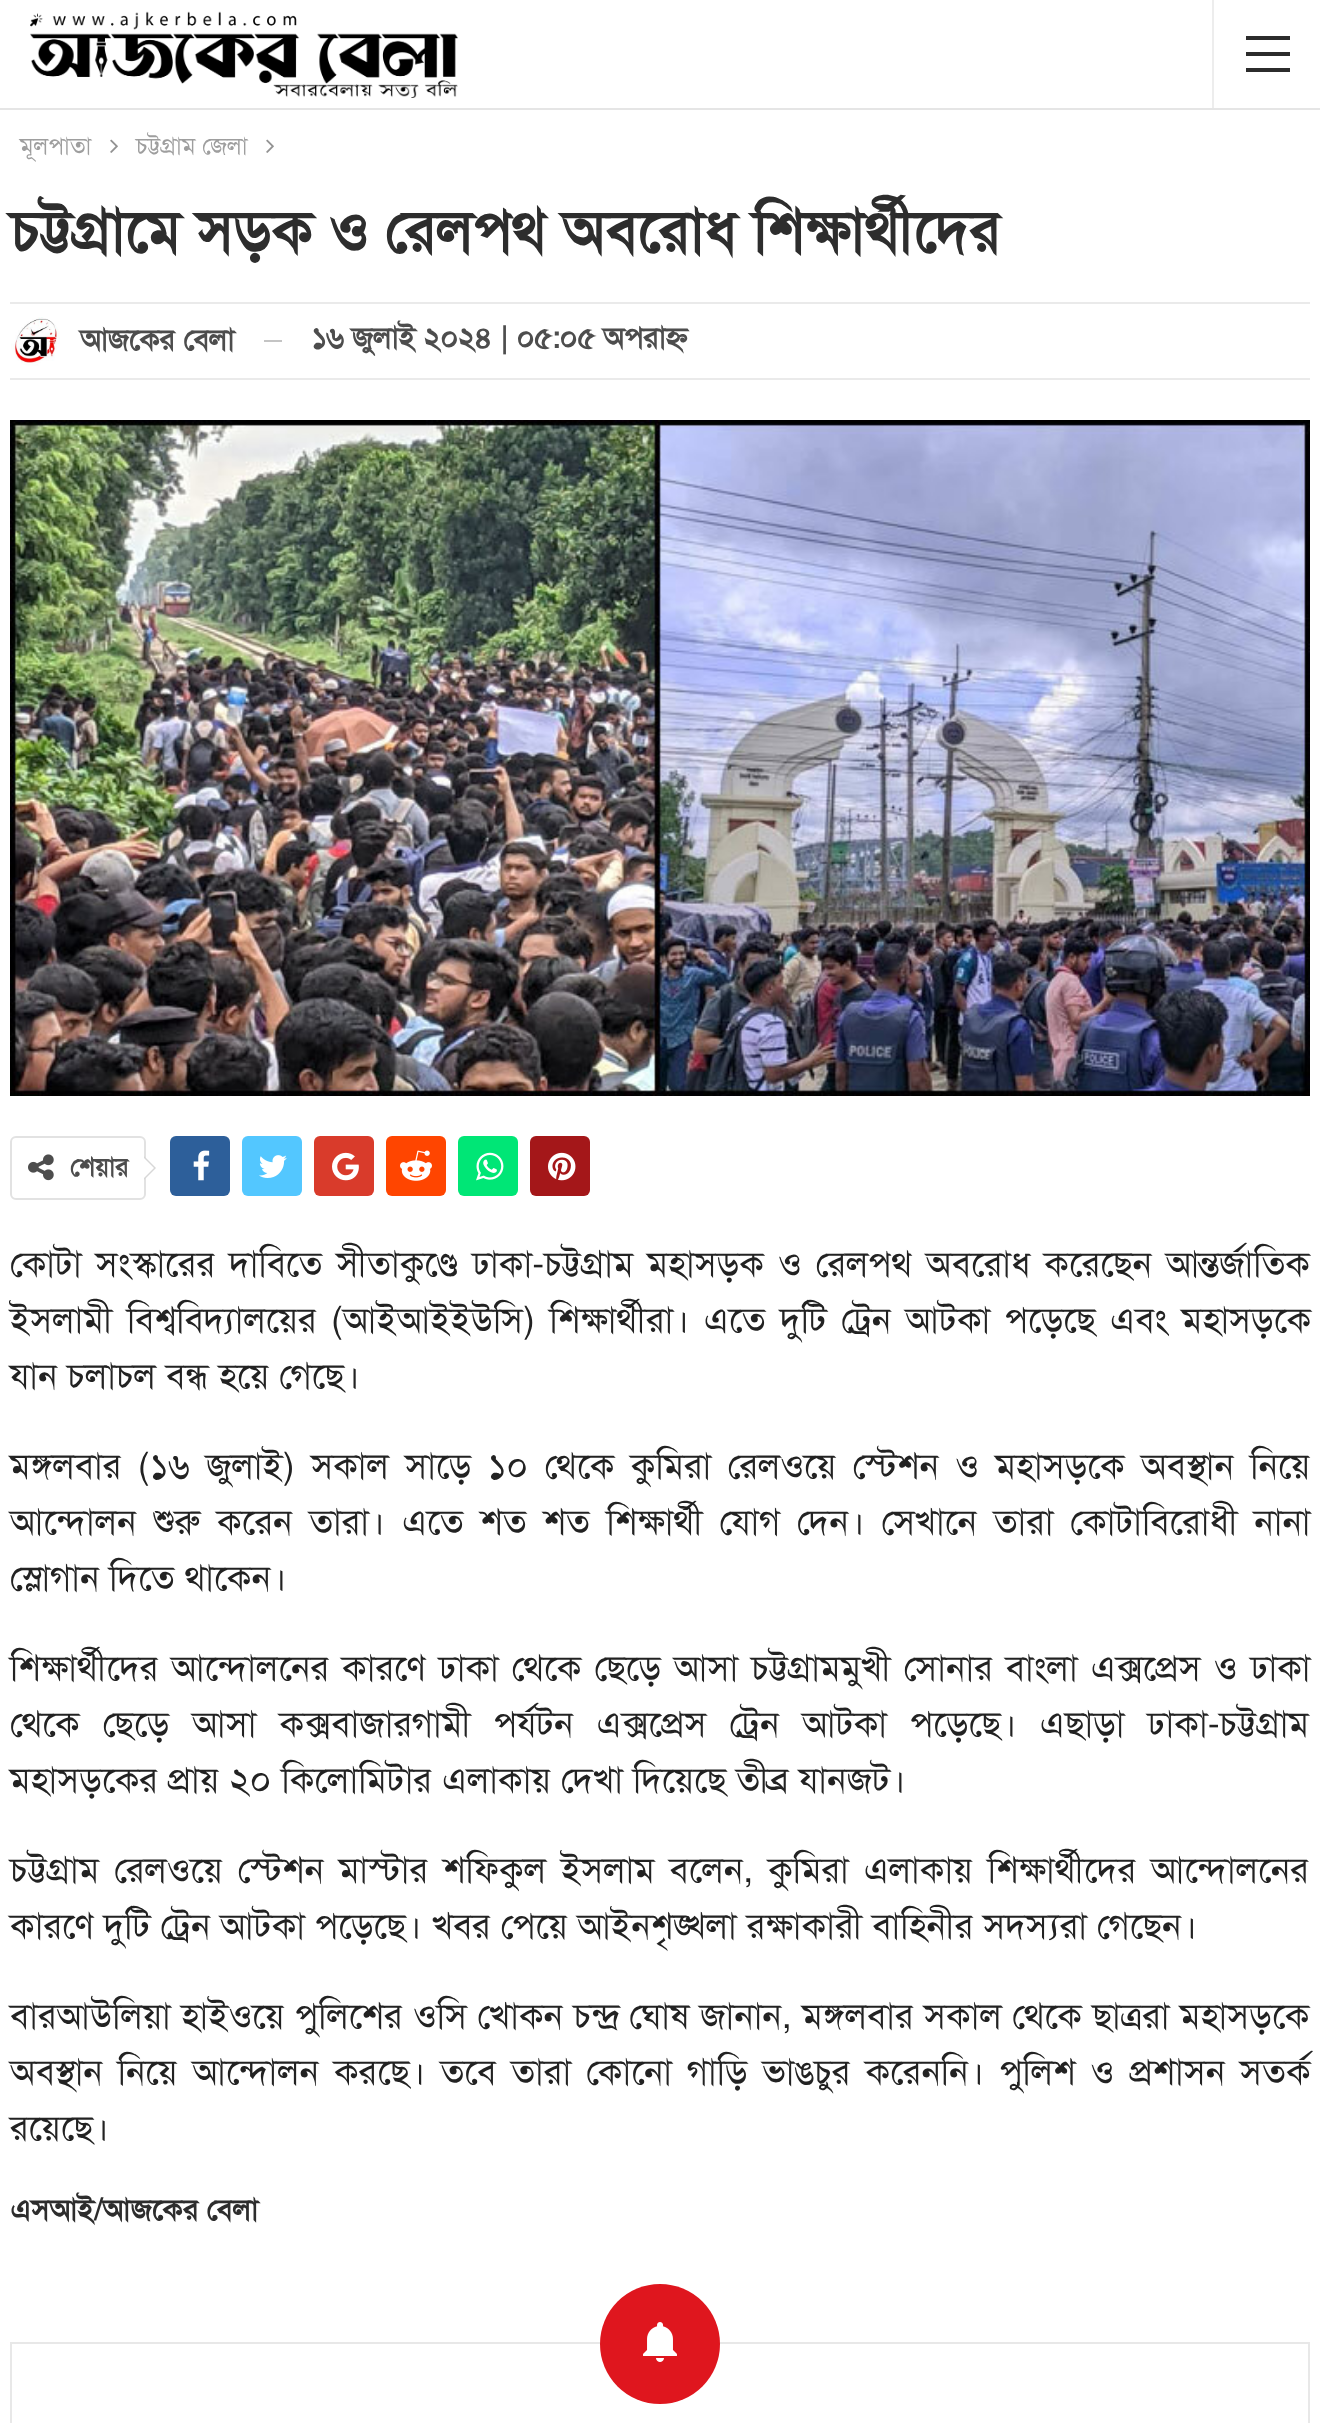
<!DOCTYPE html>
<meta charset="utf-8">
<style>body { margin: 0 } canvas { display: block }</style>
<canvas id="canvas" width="1320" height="2423"></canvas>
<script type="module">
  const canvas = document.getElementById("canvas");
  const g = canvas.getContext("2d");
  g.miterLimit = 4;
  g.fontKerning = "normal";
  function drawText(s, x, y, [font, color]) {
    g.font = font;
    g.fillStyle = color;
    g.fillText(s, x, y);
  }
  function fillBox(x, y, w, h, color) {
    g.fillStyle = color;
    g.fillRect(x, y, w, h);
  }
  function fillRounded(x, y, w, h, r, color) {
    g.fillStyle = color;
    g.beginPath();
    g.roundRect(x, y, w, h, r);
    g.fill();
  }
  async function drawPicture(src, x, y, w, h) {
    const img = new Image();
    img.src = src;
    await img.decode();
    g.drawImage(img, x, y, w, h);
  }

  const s1 = ["24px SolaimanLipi", "#9E9E9E"];
  const s2 = ["bold 60px SolaimanLipi", "#2D2D2D"];
  const s3 = ["bold 30px SolaimanLipi", "#4D4D4D"];
  const s4 = ["bold 26px SolaimanLipi", "#4D4D4D"];
  const s5 = ["36px SolaimanLipi", "#222222"];
  const s6 = ["bold 30px SolaimanLipi", "#2D2D2D"];

  fillBox(0, 0, 1320, 2423, "#FFFFFF");
  fillBox(0, 108, 1320, 2, "#E5E5E5");
  await drawPicture("pic1.png", 30, 11, 428, 87);
  fillBox(1212, 0, 2, 108, "#EDEDED");
  fillBox(1246, 52, 44, 4, "#2C2C2C");
  fillBox(1246, 36, 44, 4, "#2C2C2C");
  fillBox(1246, 68, 44, 4, "#2C2C2C");
  drawText("মূলপাতা", 20, 154, s1);
  await drawPicture("pic2.png", 110, 139, 8, 14);
  drawText("চট্টগ্রাম জেলা", 136, 154, s1);
  await drawPicture("pic2.png", 266, 139, 8, 14);
  drawText("চট্টগ্রামে সড়ক ও রেলপথ অবরোধ শিক্ষার্থীদের", 10, 252, s2);
  fillBox(10, 302, 1300, 2, "#EAEAEA");
  fillBox(10, 378, 1300, 2, "#EAEAEA");
  await drawPicture("pic3.png", 11, 317, 49, 49);
  g.letterSpacing = "-0.4px";
  g.wordSpacing = "1px";
  drawText("আজকের বেলা", 80, 350, s3);
  fillBox(264, 340, 18, 2, "#C4C4C4");
  g.wordSpacing = "0.5px";
  drawText("১৬ জুলাই ২০২৪ | ০৫:০৫ অপরাহ্ণ", 311, 348, s3);
  await drawPicture("pic4.png", 10, 420, 1300, 676);
  g.beginPath();
  g.roundRect(11, 1137, 134, 62, 5);
  g.strokeStyle = "#E2E2E2";
  g.lineWidth = 2;
  g.stroke();
  await drawPicture("pic5.png", 28, 1154, 26, 27);
  g.letterSpacing = "0px";
  g.wordSpacing = "0px";
  drawText("শেয়ার", 70, 1176, s4);
  g.fillStyle = "#D7D7D7";
  g.beginPath();
  g.moveTo(144, 1180);
  g.lineTo(144, 1156);
  g.lineTo(156, 1168);
  g.closePath();
  g.fill();
  g.fillStyle = "#FFFFFF";
  g.beginPath();
  g.moveTo(144, 1178);
  g.lineTo(144, 1158);
  g.lineTo(154, 1168);
  g.closePath();
  g.fill();
  fillRounded(170, 1136, 60, 60, 6, "#2D5F9A");
  await drawPicture("pic6.png", 193, 1150, 17, 31);
  fillRounded(242, 1136, 60, 60, 6, "#53C7FF");
  await drawPicture("pic7.png", 259, 1155, 28, 23);
  fillRounded(314, 1136, 60, 60, 6, "#D93B2B");
  await drawPicture("pic8.png", 332, 1152, 27, 29);
  fillRounded(386, 1136, 60, 60, 6, "#FF4500");
  await drawPicture("pic9.png", 400, 1150, 32, 31);
  fillRounded(458, 1136, 60, 60, 6, "#00E676");
  await drawPicture("pic10.png", 476, 1152, 28, 29);
  fillRounded(530, 1136, 60, 60, 6, "#A41719");
  await drawPicture("pic11.png", 548, 1152, 28, 29);
  g.wordSpacing = "4px";
  drawText("কোটা সংস্কারের দাবিতে সীতাকুণ্ডে ঢাকা-চট্টগ্রাম মহাসড়ক ও রেলপথ অবরোধ করেছেন আন্তর্জাতিক", 10, 1276, s5);
  g.wordSpacing = "4.5px";
  drawText("ইসলামী বিশ্ববিদ্যালয়ের (আইআইইউসি) শিক্ষার্থীরা। এতে দুটি ট্রেন আটকা পড়েছে এবং মহাসড়কে", 10, 1332, s5);
  g.wordSpacing = "0px";
  drawText("যান চলাচল বন্ধ হয়ে গেছে।", 10, 1388, s5);
  g.wordSpacing = "6.4px";
  drawText("মঙ্গলবার (১৬ জুলাই) সকাল সাড়ে ১০ থেকে কুমিরা রেলওয়ে স্টেশন ও মহাসড়কে অবস্থান নিয়ে", 10, 1478, s5);
  g.wordSpacing = "6.75px";
  drawText("আন্দোলন শুরু করেন তারা। এতে শত শত শিক্ষার্থী যোগ দেন। সেখানে তারা কোটাবিরোধী নানা", 10, 1534, s5);
  g.wordSpacing = "0px";
  drawText("স্লোগান দিতে থাকেন।", 10, 1590, s5);
  g.wordSpacing = "3px";
  drawText("শিক্ষার্থীদের আন্দোলনের কারণে ঢাকা থেকে ছেড়ে আসা চট্টগ্রামমুখী সোনার বাংলা এক্সপ্রেস ও ঢাকা", 10, 1680, s5);
  g.wordSpacing = "13px";
  drawText("থেকে ছেড়ে আসা কক্সবাজারগামী পর্যটন এক্সপ্রেস ট্রেন আটকা পড়েছে। এছাড়া ঢাকা-চট্টগ্রাম", 10, 1736, s5);
  g.wordSpacing = "0px";
  drawText("মহাসড়কের প্রায় ২০ কিলোমিটার এলাকায় দেখা দিয়েছে তীব্র যানজট।", 10, 1792, s5);
  g.wordSpacing = "5px";
  drawText("চট্টগ্রাম রেলওয়ে স্টেশন মাস্টার শফিকুল ইসলাম বলেন, কুমিরা এলাকায় শিক্ষার্থীদের আন্দোলনের", 10, 1882, s5);
  g.wordSpacing = "0px";
  drawText("কারণে দুটি ট্রেন আটকা পড়েছে। খবর পেয়ে আইনশৃঙ্খলা রক্ষাকারী বাহিনীর সদস্যরা গেছেন।", 10, 1938, s5);
  g.wordSpacing = "0.5px";
  drawText("বারআউলিয়া হাইওয়ে পুলিশের ওসি খোকন চন্দ্র ঘোষ জানান, মঙ্গলবার সকাল থেকে ছাত্ররা মহাসড়কে", 10, 2028, s5);
  g.wordSpacing = "5px";
  drawText("অবস্থান নিয়ে আন্দোলন করছে। তবে তারা কোনো গাড়ি ভাঙচুর করেননি। পুলিশ ও প্রশাসন সতর্ক", 10, 2084, s5);
  g.wordSpacing = "0px";
  drawText("রয়েছে।", 10, 2140, s5);
  drawText("এসআই/আজকের বেলা", 10, 2220, s6);
  g.strokeStyle = "#E8E8E8";
  g.strokeRect(11, 2343, 1298, 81);
  g.fillStyle = "#DF161E";
  g.beginPath();
  g.arc(660, 2344, 60, 0, Math.PI * 2);
  g.fill();
  await drawPicture("pic12.png", 643, 2322, 34, 40);
</script>
